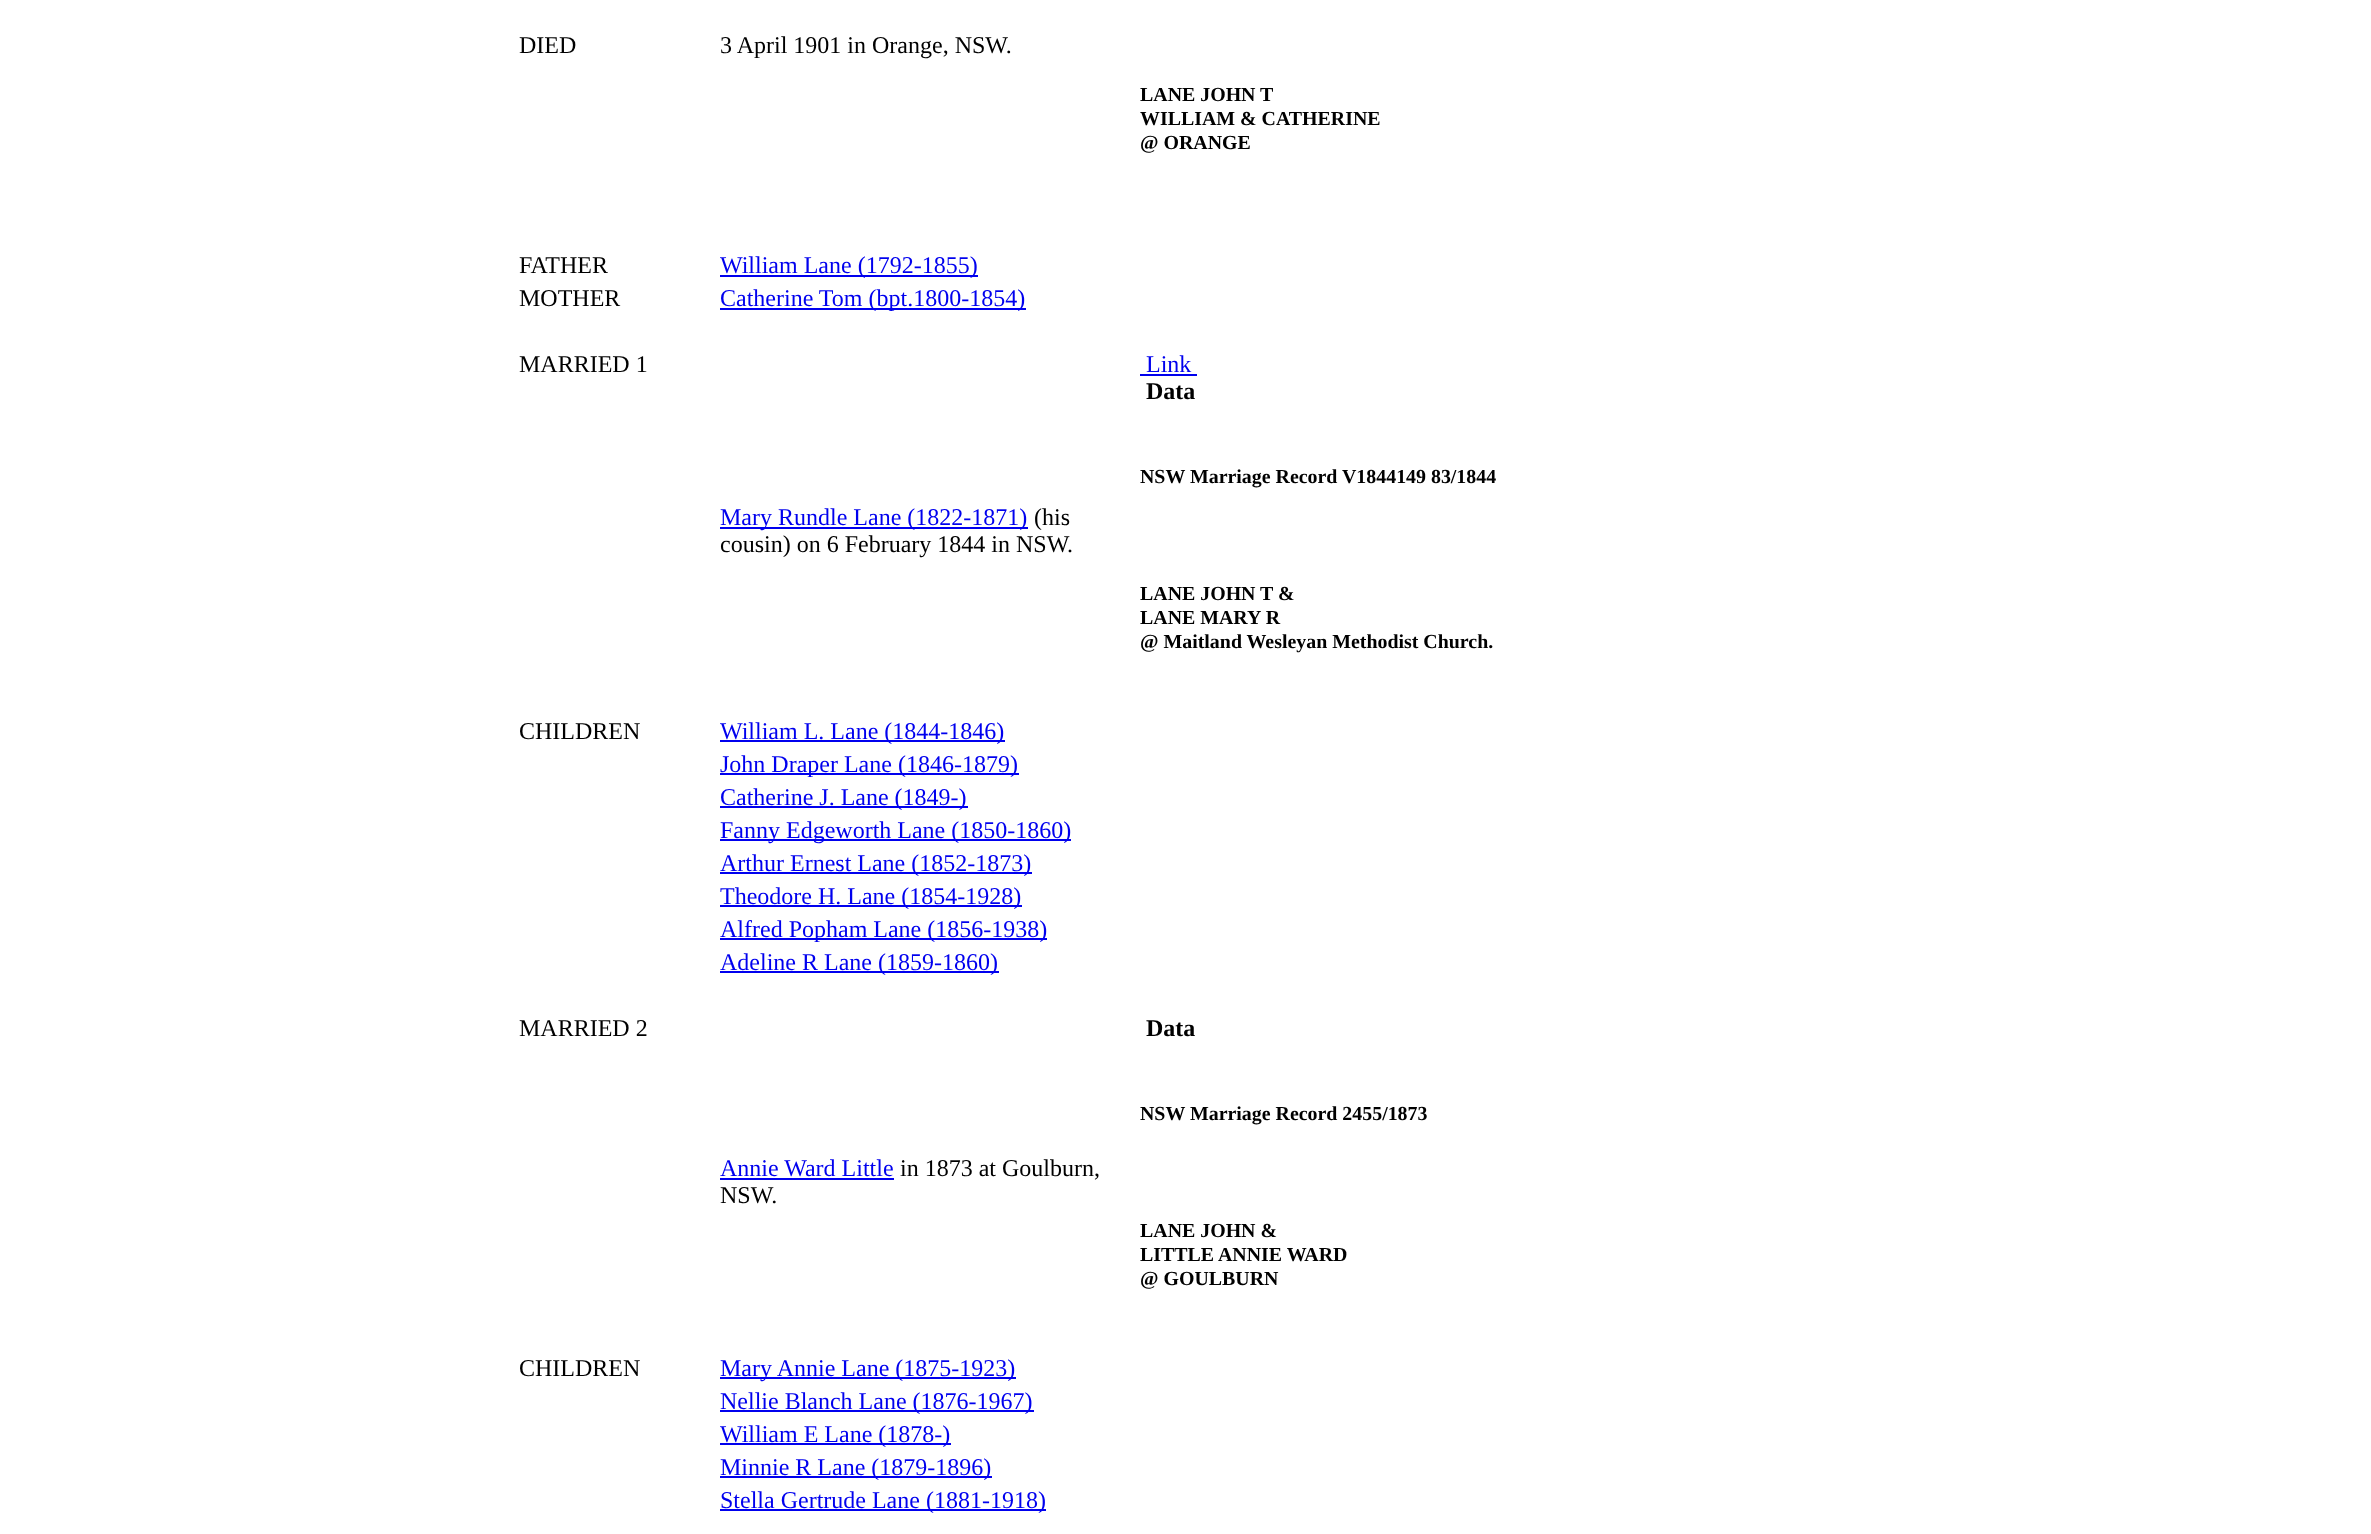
<!DOCTYPE html>
<meta charset="utf-8">
<style>body { margin: 0 } canvas { display: block }</style>
<canvas id="canvas" width="2371" height="1534"></canvas>
<script type="module">
  const canvas = document.getElementById("canvas");
  const g = canvas.getContext("2d");
  g.miterLimit = 4;
  g.fontKerning = "normal";
  function drawText(s, x, y, [font, color]) {
    g.font = font;
    g.fillStyle = color;
    g.fillText(s, x, y);
  }
  function fillBox(x, y, w, h, color) {
    g.fillStyle = color;
    g.fillRect(x, y, w, h);
  }

  const s1 = ["24px Liberation Serif", "#000000"];
  const s2 = ["bold 19.9px Liberation Serif", "#000000"];
  const s3 = ["24px Liberation Serif", "#0000EE"];
  const s4 = ["bold 24px Liberation Serif", "#000000"];

  fillBox(0, 0, 2371, 1534, "#FFFFFF");
  drawText("DIED", 519, 53, s1);
  drawText("3 April 1901 in Orange, NSW.", 720, 53, s1);
  drawText("LANE JOHN T", 1140, 101, s2);
  drawText("WILLIAM & CATHERINE", 1140, 125, s2);
  drawText("@ ORANGE", 1140, 149, s2);
  drawText("FATHER", 519, 273, s1);
  fillBox(720, 275, 258, 2, "#0000EE");
  drawText("William Lane (1792-1855)", 720, 273, s3);
  drawText("MOTHER", 519, 306, s1);
  fillBox(720, 308, 306, 2, "#0000EE");
  drawText("Catherine Tom (bpt.1800-1854)", 720, 306, s3);
  drawText("MARRIED 1", 519, 372, s1);
  drawText("Link", 1146, 372, s3);
  fillBox(1140, 374, 57, 2, "#0000EE");
  drawText("Data", 1146, 399, s4);
  drawText("NSW Marriage Record V1844149 83/1844", 1140, 483, s2);
  drawText("LANE JOHN T &", 1140, 600, s2);
  drawText("LANE MARY R", 1140, 624, s2);
  drawText("@ Maitland Wesleyan Methodist Church.", 1140, 648, s2);
  fillBox(720, 527, 308, 2, "#0000EE");
  drawText("Mary Rundle Lane (1822-1871)", 720, 525, s3);
  drawText("(his", 1034, 525, s1);
  drawText("cousin) on 6 February 1844 in NSW.", 720, 552, s1);
  drawText("CHILDREN", 519, 739, s1);
  fillBox(720, 740, 285, 2, "#0000EE");
  drawText("William L. Lane (1844-1846)", 720, 739, s3);
  fillBox(720, 773, 299, 2, "#0000EE");
  drawText("John Draper Lane (1846-1879)", 720, 772, s3);
  fillBox(720, 806, 248, 2, "#0000EE");
  drawText("Catherine J. Lane (1849-)", 720, 805, s3);
  fillBox(720, 839, 351, 2, "#0000EE");
  drawText("Fanny Edgeworth Lane (1850-1860)", 720, 838, s3);
  fillBox(720, 872, 312, 2, "#0000EE");
  drawText("Arthur Ernest Lane (1852-1873)", 720, 871, s3);
  fillBox(720, 905, 302, 2, "#0000EE");
  drawText("Theodore H. Lane (1854-1928)", 720, 904, s3);
  fillBox(720, 938, 327, 2, "#0000EE");
  drawText("Alfred Popham Lane (1856-1938)", 720, 937, s3);
  fillBox(720, 971, 279, 2, "#0000EE");
  drawText("Adeline R Lane (1859-1860)", 720, 970, s3);
  drawText("MARRIED 2", 519, 1036, s1);
  drawText("Annie Ward Little", 720, 1176, s3);
  fillBox(720, 1178, 174, 2, "#0000EE");
  drawText("in 1873 at Goulburn,", 900, 1176, s1);
  drawText("NSW.", 720, 1203, s1);
  drawText("Data", 1146, 1036, s4);
  drawText("NSW Marriage Record 2455/1873", 1140, 1120, s2);
  drawText("LANE JOHN &", 1140, 1237, s2);
  drawText("LITTLE ANNIE WARD", 1140, 1261, s2);
  drawText("@ GOULBURN", 1140, 1285, s2);
  drawText("CHILDREN", 519, 1376, s1);
  fillBox(720, 1377, 296, 2, "#0000EE");
  drawText("Mary Annie Lane (1875-1923)", 720, 1376, s3);
  fillBox(720, 1410, 314, 2, "#0000EE");
  drawText("Nellie Blanch Lane (1876-1967)", 720, 1409, s3);
  fillBox(720, 1443, 231, 2, "#0000EE");
  drawText("William E Lane (1878-)", 720, 1442, s3);
  fillBox(720, 1476, 272, 2, "#0000EE");
  drawText("Minnie R Lane (1879-1896)", 720, 1475, s3);
  fillBox(720, 1509, 326, 2, "#0000EE");
  drawText("Stella Gertrude Lane (1881-1918)", 720, 1508, s3);
</script>
